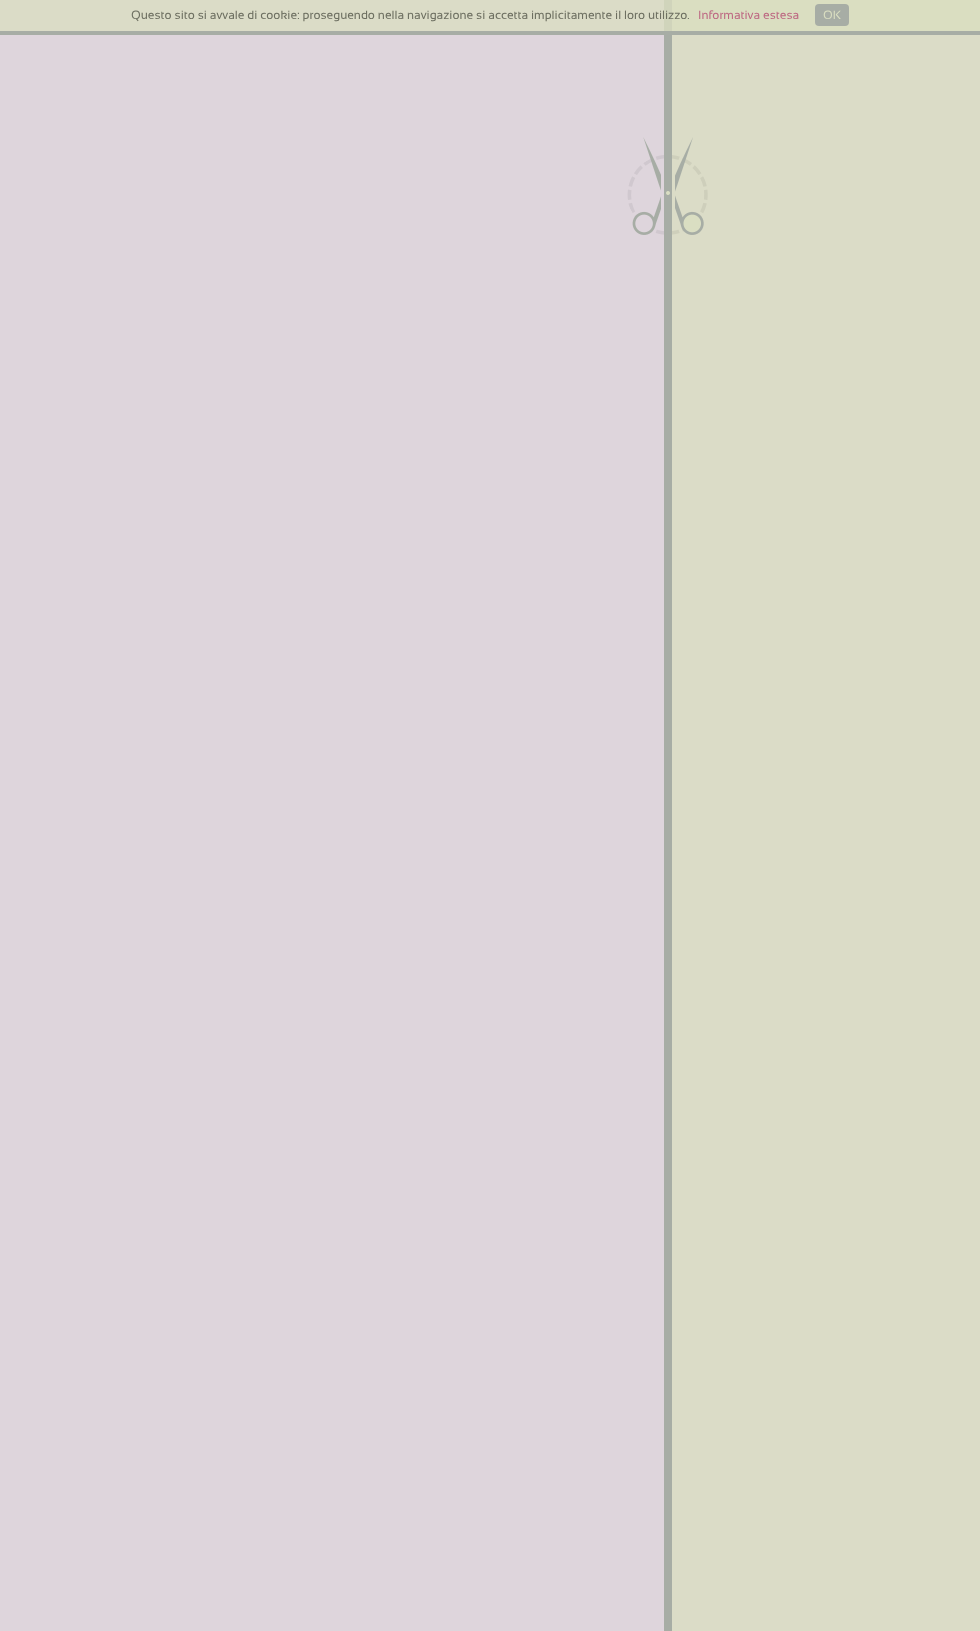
<!DOCTYPE html>
<meta charset="utf-8">
<style>body { margin: 0 } canvas { display: block }</style>
<canvas id="canvas" width="980" height="1631"></canvas>
<script type="module">
  const canvas = document.getElementById("canvas");
  const g = canvas.getContext("2d");
  g.miterLimit = 4;
  g.fontKerning = "normal";
  function drawText(s, x, y, [font, color]) {
    g.font = font;
    g.fillStyle = color;
    g.fillText(s, x, y);
  }
  function fillBox(x, y, w, h, color) {
    g.fillStyle = color;
    g.fillRect(x, y, w, h);
  }
  function fillRounded(x, y, w, h, r, color) {
    g.fillStyle = color;
    g.beginPath();
    g.roundRect(x, y, w, h, r);
    g.fill();
  }
  async function drawPicture(src, x, y, w, h) {
    const img = new Image();
    img.src = src;
    await img.decode();
    g.drawImage(img, x, y, w, h);
  }

  const s1 = ["12px Sansation", "#6D6F61"];
  const s2 = ["12px Sansation", "#BD6882"];
  const s3 = ["12px Sansation", "#DADEC1"];

  fillBox(0, 0, 980, 1631, "#DBDCC7");
  fillBox(0, 35, 664, 1596, "#DED5DC");
  fillBox(664, 35, 8, 1596, "#A7ADA5");
  fillBox(664, 0, 8, 35, "#D0D4BB");
  await drawPicture("pic2.png", 627, 155, 81, 80);
  await drawPicture("pic1.png", 632, 137, 72, 98);
  fillBox(672, 0, 308, 31, "#DADEC1");
  fillBox(0, 31, 980, 4, "#A7ADA5");
  drawText("Questo sito si avvale di cookie: proseguendo nella navigazione si accetta implicitamente il loro utilizzo.", 131, 19, s1);
  drawText("Informativa estesa", 698, 19, s2);
  fillRounded(815, 4, 34, 22, 4, "#A7ADA5");
  drawText("OK", 823, 19, s3);
</script>
